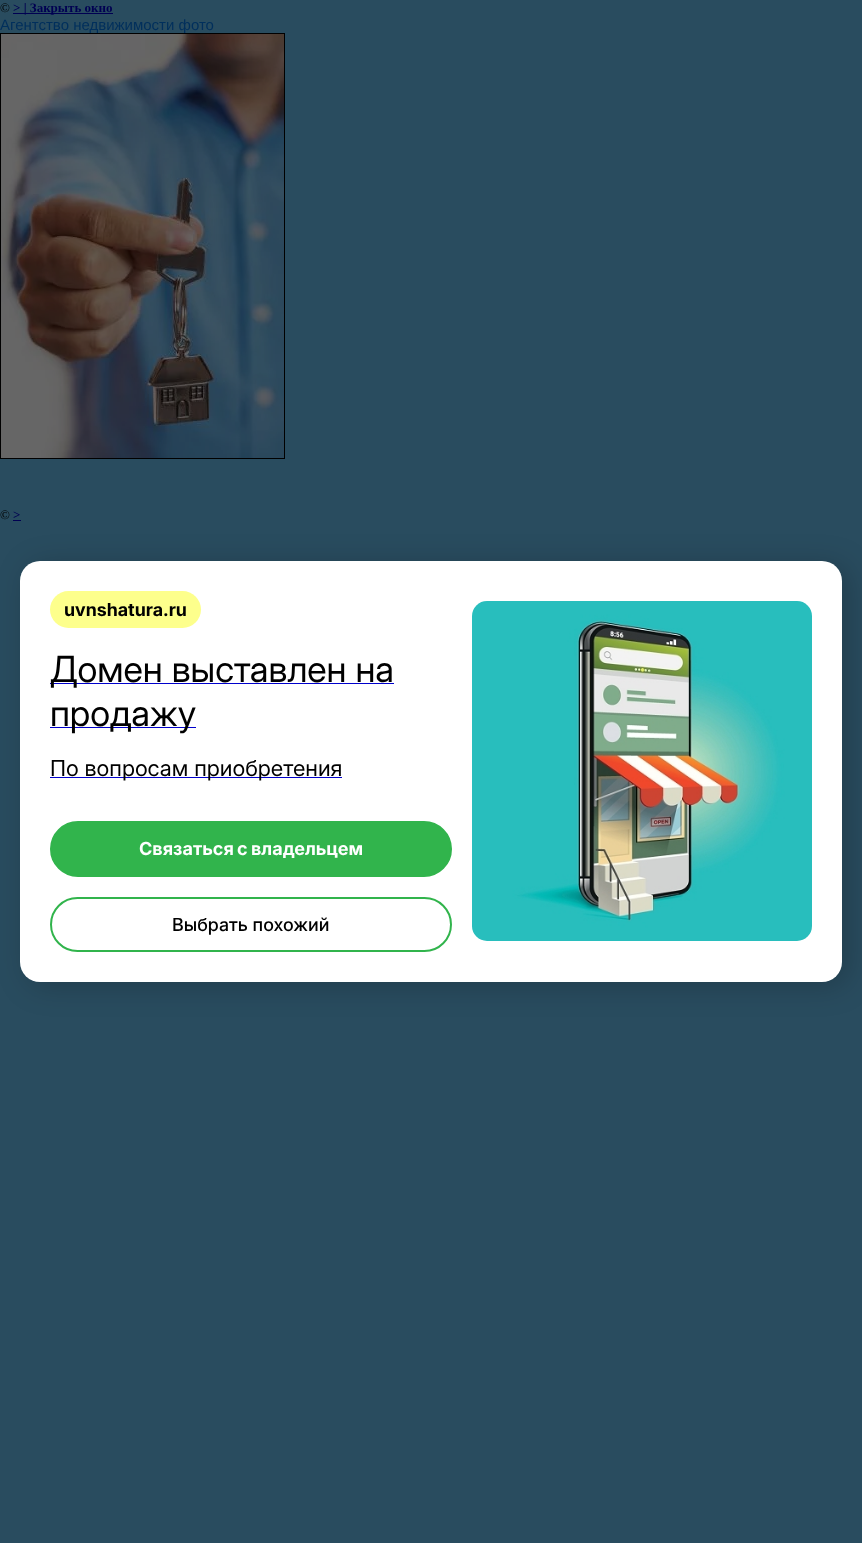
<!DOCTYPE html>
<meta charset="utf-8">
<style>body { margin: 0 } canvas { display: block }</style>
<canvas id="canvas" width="862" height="1543"></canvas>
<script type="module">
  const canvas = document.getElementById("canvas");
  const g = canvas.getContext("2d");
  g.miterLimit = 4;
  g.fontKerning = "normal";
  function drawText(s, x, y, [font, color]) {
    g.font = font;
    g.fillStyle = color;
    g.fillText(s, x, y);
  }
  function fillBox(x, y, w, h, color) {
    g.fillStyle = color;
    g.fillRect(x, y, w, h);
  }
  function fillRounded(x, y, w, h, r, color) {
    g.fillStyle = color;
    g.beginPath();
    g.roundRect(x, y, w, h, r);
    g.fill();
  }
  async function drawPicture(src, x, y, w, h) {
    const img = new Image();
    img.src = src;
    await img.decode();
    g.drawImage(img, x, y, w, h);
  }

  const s1 = ["13px Liberation Serif", "#000000"];
  const s2 = ["bold 13px Liberation Serif", "#000052"];
  const s3 = ["15px Liberation Sans", "#002F5C"];
  const s4 = ["bold 18px Inter", "#000000"];
  const s5 = ["36px Inter", "#000000"];
  const s6 = ["22px 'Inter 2'", "#000000"];
  const s7 = ["bold 18px 'Inter 2'", "#FFFFFF"];
  const s8 = ["500 18px Inter", "#000000"];

  fillBox(0, 0, 862, 1543, "#294C5F");
  drawText("©", 0, 12, s1);
  fillBox(13, 13, 100, 1, "#000052");
  drawText("> | Закрыть окно", 13, 12, s2);
  drawText("Агентство недвижимости фото", 0, 30, s3);
  g.strokeStyle = "#000000";
  g.strokeRect(0.5, 33.5, 284, 425);
  await drawPicture("pic1.png", 1, 34, 283, 424);
  drawText("©", 0, 519, s1);
  drawText(">", 13, 519, s2);
  fillBox(13, 520, 8, 1, "#000052");
  g.fillStyle = "rgba(0, 0, 0, 0.2)";
  g.filter = "blur(15px)";
  g.beginPath();
  g.roundRect(27, 565, 822, 421, 20);
  g.fill();
  g.filter = "none";
  fillRounded(20, 561, 822, 421, 20, "#FFFFFF");
  fillRounded(50, 591, 151, 37, 18.5, "#FDFF8C");
  drawText("uvnshatura.ru", 64, 616, s4);
  fillBox(50, 683, 344, 1, "#0000CC");
  drawText("Домен выставлен на", 50, 682, s5);
  fillBox(50, 727, 146, 1, "#0000CC");
  drawText("продажу", 50, 726, s5);
  fillBox(50, 777, 292, 1, "#0000CC");
  drawText("По вопросам приобретения", 50, 776, s6);
  g.fillStyle = "#31B44C";
  g.beginPath();
  g.roundRect(51, 822, 400, 54, 27);
  g.fill();
  g.strokeStyle = "#31B44C";
  g.lineWidth = 2;
  g.stroke();
  g.wordSpacing = "-1px";
  drawText("Связаться с владельцем", 139, 855, s7);
  g.beginPath();
  g.roundRect(51, 898, 400, 53, 26.5);
  g.stroke();
  g.wordSpacing = "0px";
  drawText("Выбрать похожий", 172, 931, s8);
  await drawPicture("pic2.png", 472, 601, 340, 340);
</script>
